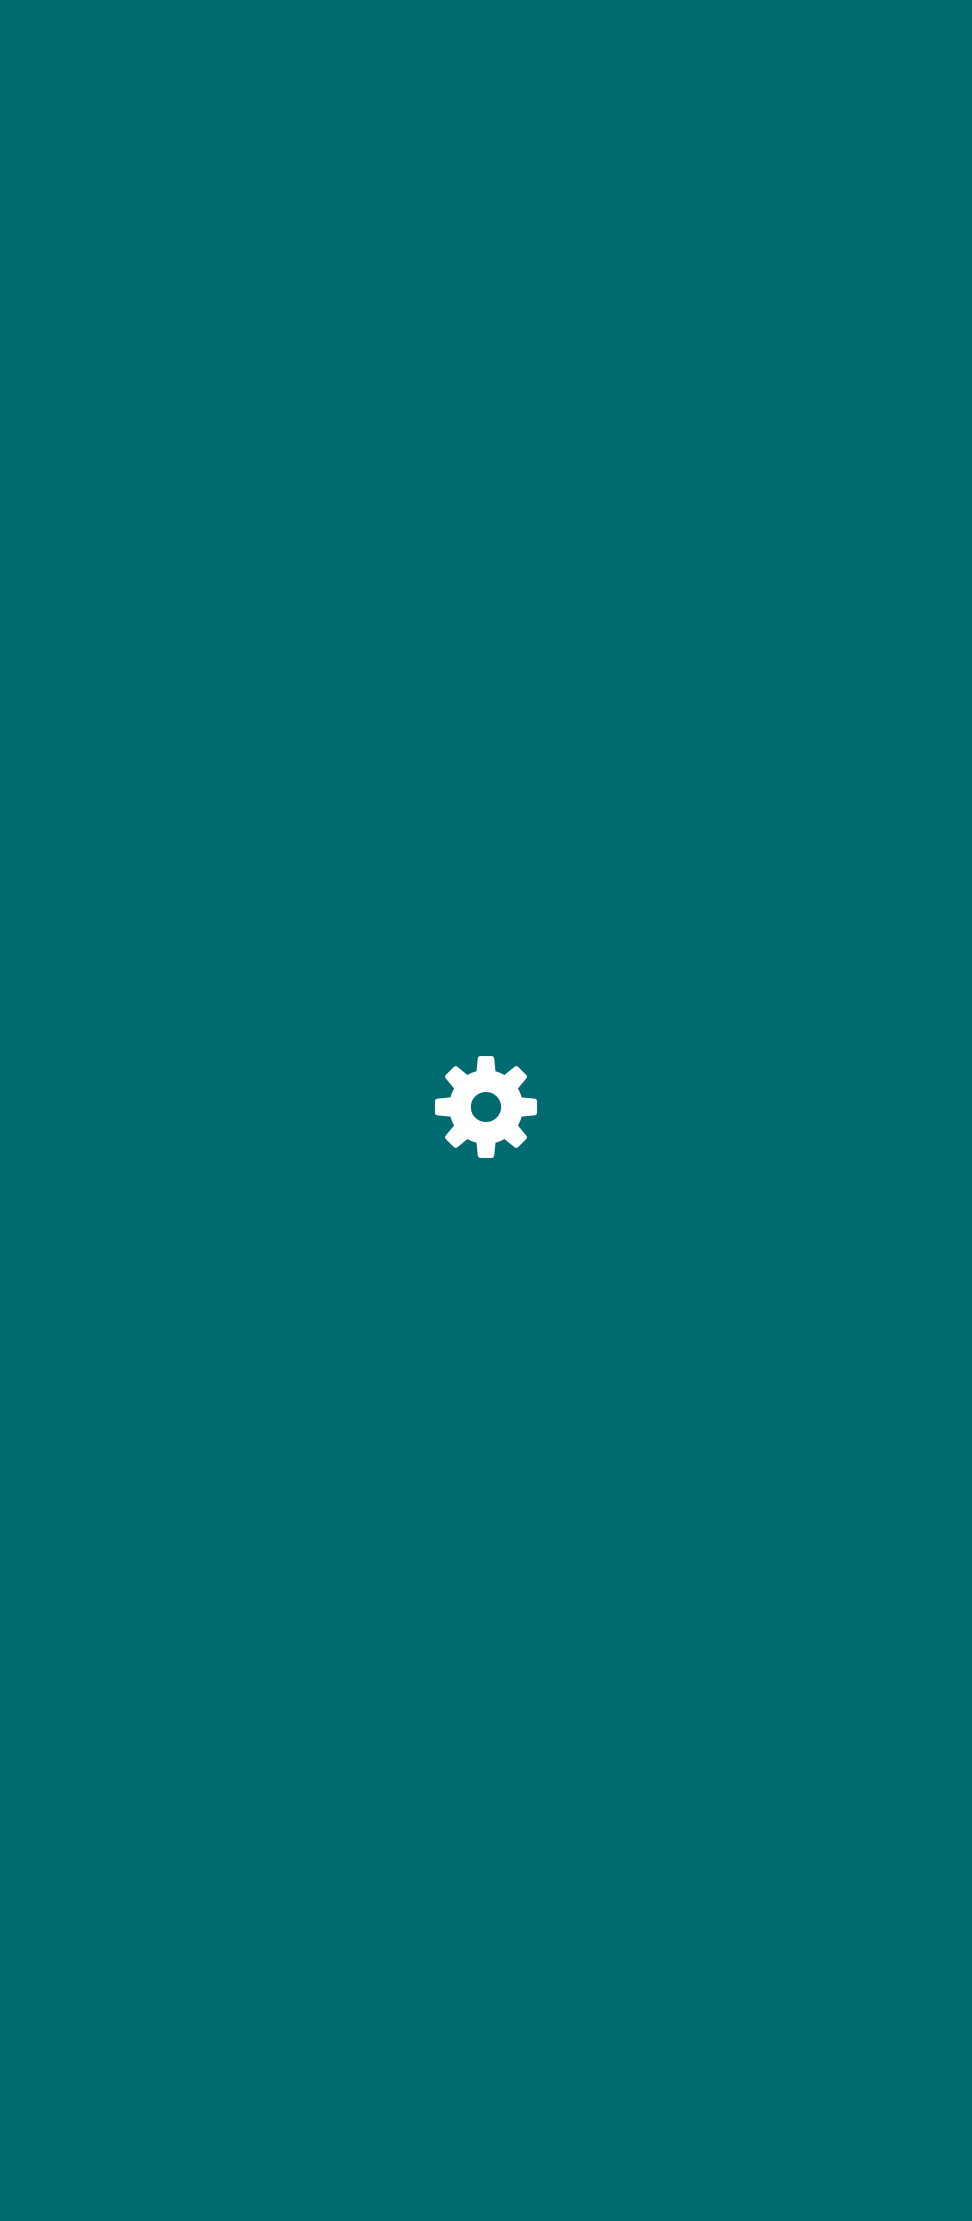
<!DOCTYPE html>
<meta charset="utf-8">
<style>body { margin: 0 } canvas { display: block }</style>
<canvas id="canvas" width="972" height="2221"></canvas>
<script type="module">
  const canvas = document.getElementById("canvas");
  const g = canvas.getContext("2d");
  g.miterLimit = 4;
  g.fontKerning = "normal";
  function fillBox(x, y, w, h, color) {
    g.fillStyle = color;
    g.fillRect(x, y, w, h);
  }
  async function drawPicture(src, x, y, w, h) {
    const img = new Image();
    img.src = src;
    await img.decode();
    g.drawImage(img, x, y, w, h);
  }

  fillBox(0, 0, 972, 2221, "#006A71");
  await drawPicture("pic1.png", 434, 1056, 104, 102);
</script>
